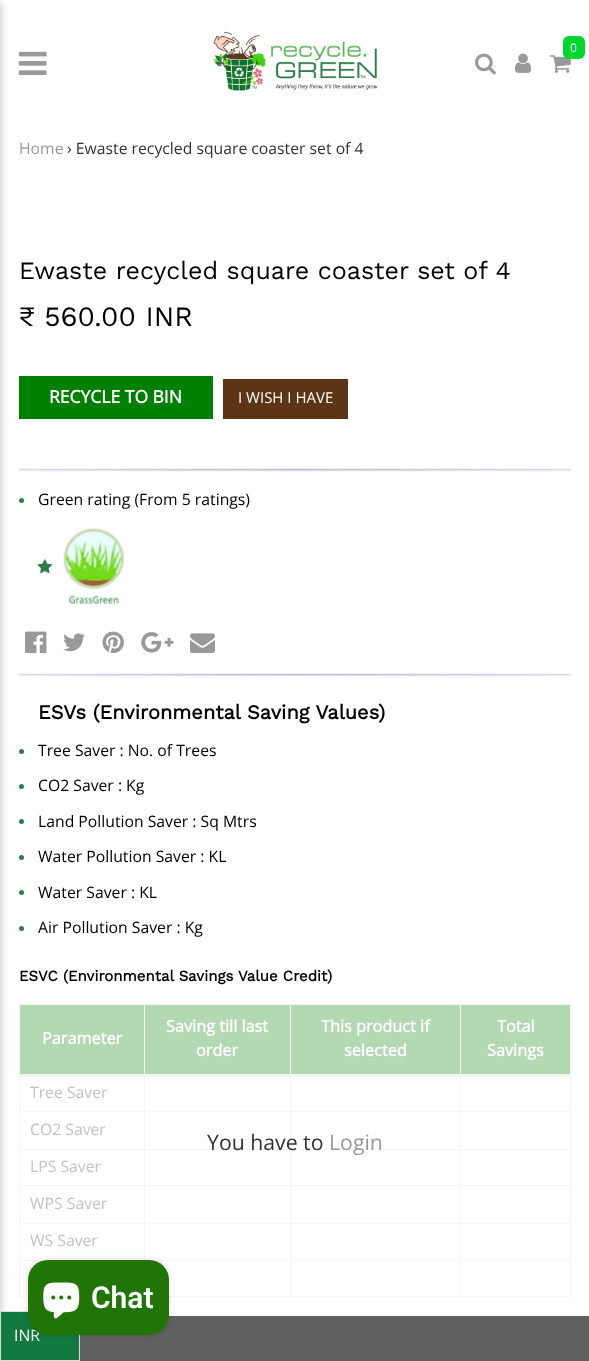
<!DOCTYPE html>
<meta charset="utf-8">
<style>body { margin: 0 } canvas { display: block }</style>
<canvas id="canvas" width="589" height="1361"></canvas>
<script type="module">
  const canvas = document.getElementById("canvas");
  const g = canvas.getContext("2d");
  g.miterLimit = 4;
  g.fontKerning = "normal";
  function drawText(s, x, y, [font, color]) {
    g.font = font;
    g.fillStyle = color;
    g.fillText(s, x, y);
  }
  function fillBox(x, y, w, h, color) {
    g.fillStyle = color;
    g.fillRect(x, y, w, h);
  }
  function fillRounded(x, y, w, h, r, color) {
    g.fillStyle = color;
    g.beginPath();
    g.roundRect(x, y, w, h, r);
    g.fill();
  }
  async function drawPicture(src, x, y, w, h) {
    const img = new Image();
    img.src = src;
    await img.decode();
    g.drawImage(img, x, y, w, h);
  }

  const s1 = ["12px Open Sans", "#FFFFFF"];
  const s2 = ["15.75px Open Sans", "#FFFFFF"];
  const s3 = ["15.75px Open Sans", "#999999"];
  const s4 = ["15.75px Open Sans", "#333333"];
  const s5 = ["25px Work Sans", "#000000"];
  const s6 = ["28px Work Sans", "#000000"];
  const s7 = ["bold 17.5px Open Sans", "#FFFFFF"];
  const s8 = ["15px Open Sans", "#FFFFFF"];
  const s9 = ["15.75px Open Sans", "#000000"];
  const s10 = ["bold 20px Work Sans", "#000000"];
  const s11 = ["bold 15px Work Sans", "#000000"];
  const s12 = ["bold 16.25px Open Sans", "#FFFFFF"];
  const s13 = ["15.75px Open Sans", "#C2C2C2"];
  const s14 = ["21.25px Open Sans", "#333333"];
  const s15 = ["21.25px Open Sans", "#999999"];
  const s16 = ["600 30px Roboto", "#FFFFFF"];

  fillBox(0, 0, 589, 1361, "#FFFFFF");
  await drawPicture("pic5.png", 18, 51, 29, 24);
  await drawPicture("pic6.png", 18, 468, 554, 4);
  await drawPicture("pic6.png", 18, 673, 554, 4);
  g.fillStyle = "rgba(0, 0, 0, 0.12)";
  g.filter = "blur(6px)";
  g.beginPath();
  g.rect(-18, 3, 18, 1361);
  g.fill();
  g.filter = "none";
  g.fillStyle = "rgba(0, 0, 0, 0.16)";
  g.filter = "blur(3px)";
  g.beginPath();
  g.rect(-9, 3, 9, 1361);
  g.fill();
  g.filter = "none";
  await drawPicture("pic1.png", 213, 31, 165, 60);
  await drawPicture("pic2.png", 550, 55, 21, 18);
  fillRounded(563, 36, 22, 23, 6, "#00D62E");
  drawText("0", 570, 52, s1);
  await drawPicture("pic3.png", 475, 53, 21, 22);
  await drawPicture("pic4.png", 515, 53, 17, 20);
  g.fillStyle = "#127A3E";
  g.beginPath();
  g.rect(0.5, 1311.5, 79, 49);
  g.fill();
  g.strokeStyle = "#DDDDDD";
  g.stroke();
  drawText("INR", 14, 1341, s2);
  drawText("Home", 19, 154, s3);
  drawText("› Ewaste recycled square coaster set of 4", 67, 154, s4);
  drawText("Ewaste recycled square coaster set of 4", 19, 279, s5);
  drawText("₹ 560.00 INR", 19, 326, s6);
  fillBox(19, 376, 194, 43, "#008000");
  drawText("RECYCLE TO BIN", 49, 403, s7);
  fillBox(223, 379, 125, 40, "#5D3416");
  drawText("I WISH I HAVE", 238, 403, s8);
  g.fillStyle = "#317D48";
  g.beginPath();
  g.arc(21.5, 500.5, 2.5, 0, Math.PI * 2);
  g.fill();
  drawText("Green rating (From 5 ratings)", 38, 505, s9);
  await drawPicture("pic7.png", 37, 559, 16, 15);
  await drawPicture("pic8.png", 63, 527, 62, 77);
  await drawPicture("pic9.png", 25, 631, 22, 23);
  await drawPicture("pic10.png", 63, 633, 22, 19);
  await drawPicture("pic11.png", 102, 631, 22, 22);
  await drawPicture("pic12.png", 141, 632, 33, 21);
  await drawPicture("pic13.png", 190, 633, 25, 21);
  drawText("ESVs (Environmental Saving Values)", 38, 719, s10);
  g.fillStyle = "#317D48";
  g.beginPath();
  g.arc(21.5, 751.5, 2.5, 0, Math.PI * 2);
  g.fill();
  drawText("Tree Saver : No. of Trees", 38, 756, s9);
  g.fillStyle = "#317D48";
  g.beginPath();
  g.arc(21.5, 786.5, 2.5, 0, Math.PI * 2);
  g.fill();
  drawText("CO2 Saver : Kg", 38, 791, s9);
  g.fillStyle = "#317D48";
  g.beginPath();
  g.arc(21.5, 821.5, 2.5, 0, Math.PI * 2);
  g.fill();
  drawText("Land Pollution Saver : Sq Mtrs", 38, 827, s9);
  g.fillStyle = "#317D48";
  g.beginPath();
  g.arc(21.5, 857.5, 2.5, 0, Math.PI * 2);
  g.fill();
  drawText("Water Pollution Saver : KL", 38, 862, s9);
  g.fillStyle = "#317D48";
  g.beginPath();
  g.arc(21.5, 892.5, 2.5, 0, Math.PI * 2);
  g.fill();
  drawText("Water Saver : KL", 38, 898, s9);
  g.fillStyle = "#317D48";
  g.beginPath();
  g.arc(21.5, 928.5, 2.5, 0, Math.PI * 2);
  g.fill();
  drawText("Air Pollution Saver : Kg", 38, 933, s9);
  drawText("ESVC (Environmental Savings Value Credit)", 19, 981, s11);
  fillBox(20, 1005, 550, 69, "#B3D9B3");
  fillBox(19, 1004, 552, 1, "#F5F5F5");
  fillBox(19, 1111, 552, 1, "#F5F5F5");
  fillBox(19, 1149, 552, 1, "#F5F5F5");
  fillBox(19, 1185, 552, 1, "#F5F5F5");
  fillBox(19, 1223, 552, 1, "#F5F5F5");
  fillBox(19, 1260, 552, 1, "#F5F5F5");
  fillBox(570, 1260, 1, 38, "#F5F5F5");
  fillBox(570, 1223, 1, 38, "#F5F5F5");
  fillBox(570, 1185, 1, 39, "#F5F5F5");
  fillBox(570, 1149, 1, 37, "#F5F5F5");
  fillBox(570, 1074, 1, 76, "#F5F5F5");
  fillBox(570, 1004, 1, 71, "#F5F5F5");
  fillBox(19, 1296, 552, 1, "#F5F5F5");
  fillBox(19, 1260, 1, 38, "#F5F5F5");
  fillBox(19, 1223, 1, 38, "#F5F5F5");
  fillBox(19, 1185, 1, 39, "#F5F5F5");
  fillBox(19, 1149, 1, 37, "#F5F5F5");
  fillBox(19, 1074, 1, 76, "#F5F5F5");
  fillBox(19, 1004, 1, 71, "#F5F5F5");
  drawText("Parameter", 42, 1044, s12);
  drawText("Saving till last", 166, 1032, s12);
  drawText("order", 196, 1056, s12);
  drawText("This product if", 321, 1032, s12);
  drawText("selected", 344, 1056, s12);
  fillBox(290, 1004, 1, 294, "#F5F5F5");
  fillBox(460, 1004, 1, 294, "#F5F5F5");
  fillBox(144, 1004, 1, 257, "#F5F5F5");
  fillBox(19, 1074, 552, 3, "#F5F5F5");
  drawText("Total", 497, 1032, s12);
  drawText("Savings", 487, 1056, s12);
  drawText("Tree Saver", 30, 1098, s13);
  drawText("CO2 Saver", 30, 1135, s13);
  drawText("LPS Saver", 30, 1172, s13);
  drawText("WPS Saver", 30, 1209, s13);
  drawText("WS Saver", 30, 1246, s13);
  drawText("You have to", 207, 1150, s14);
  drawText("Login", 329, 1150, s15);
  fillBox(80, 1316, 509, 45, "#606161");
  g.fillStyle = "rgba(0, 0, 0, 0.15)";
  g.filter = "blur(3px)";
  g.beginPath();
  g.roundRect(28, 1260, 141, 75, 20);
  g.fill();
  g.filter = "none";
  fillRounded(28, 1260, 141, 75, 20, "#207506");
  await drawPicture("pic14.png", 43, 1282, 37, 37);
  drawText("Chat", 91, 1308, s16);
</script>
